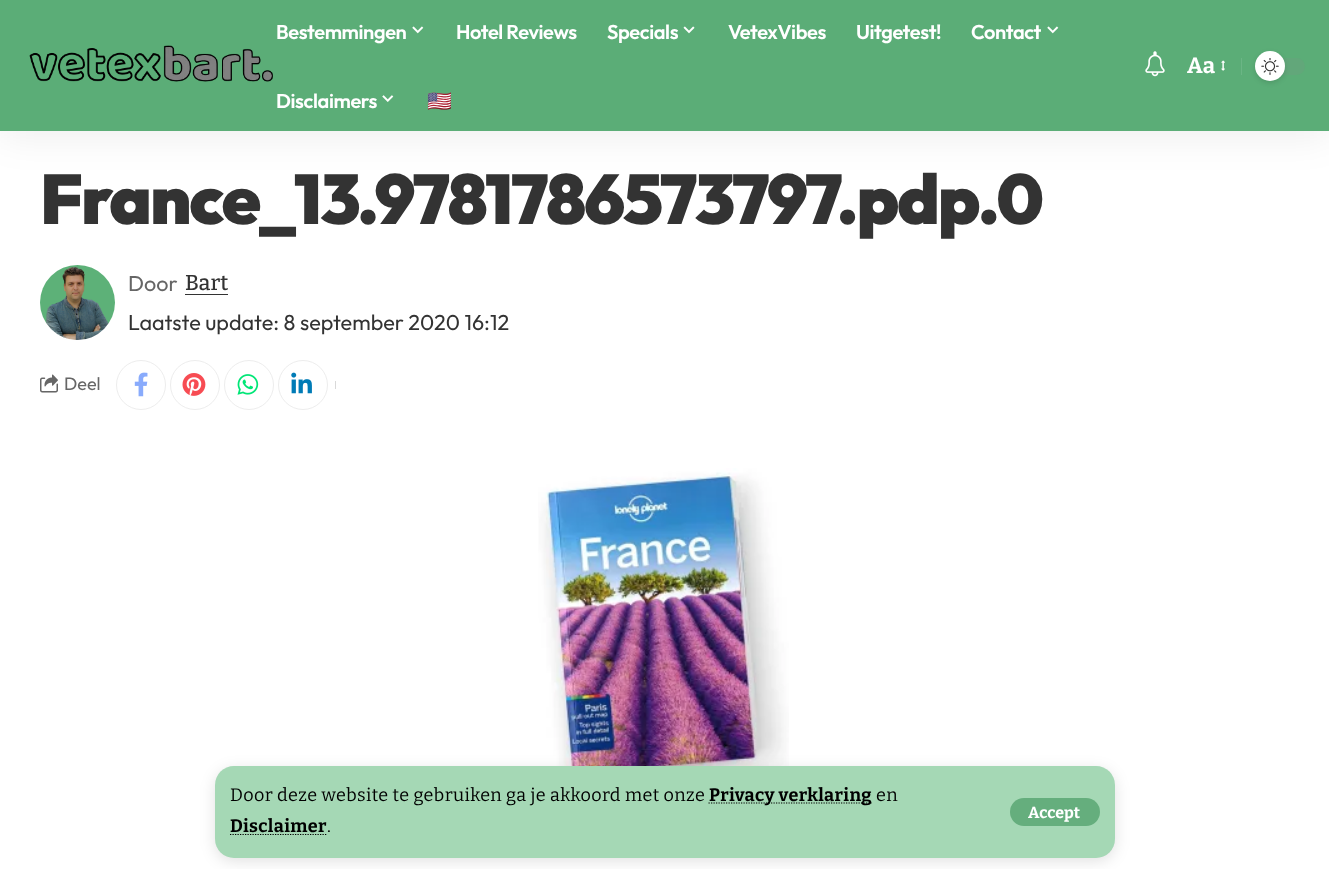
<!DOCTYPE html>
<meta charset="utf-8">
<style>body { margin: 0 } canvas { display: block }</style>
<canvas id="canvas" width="1329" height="869"></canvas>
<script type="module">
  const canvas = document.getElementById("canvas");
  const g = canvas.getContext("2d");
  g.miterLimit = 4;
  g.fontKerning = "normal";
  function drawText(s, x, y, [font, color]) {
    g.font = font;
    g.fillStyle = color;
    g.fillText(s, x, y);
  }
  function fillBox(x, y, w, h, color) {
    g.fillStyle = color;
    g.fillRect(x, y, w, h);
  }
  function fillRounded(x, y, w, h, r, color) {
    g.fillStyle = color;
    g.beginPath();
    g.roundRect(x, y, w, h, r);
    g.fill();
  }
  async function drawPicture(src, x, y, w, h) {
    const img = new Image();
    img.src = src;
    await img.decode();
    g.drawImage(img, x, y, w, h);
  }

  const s1 = ["600 20px Outfit", "#FFFFFF"];
  const s2 = ["bold 20px Noto Color Emoji", "#FFFFFF"];
  const s3 = ["bold 22px Bitter", "#FFFFFF"];
  const s4 = ["18px Bitter", "#000000"];
  const s5 = ["bold 18px Bitter", "#000000"];
  const s6 = ["bold 16px Bitter", "#FFFFFF"];
  const s7 = ["900 70px Outfit", "#333333"];
  const s8 = ["21.6px Outfit", "#666666"];
  const s9 = ["500 21.6px Bitter", "#333333"];
  const s10 = ["21.6px Outfit", "#333333"];
  const s11 = ["18px Outfit", "#666666"];

  fillBox(0, 0, 1329, 869, "#FFFFFF");
  g.fillStyle = "rgba(0, 0, 0, 0.07)";
  g.filter = "blur(19px)";
  g.beginPath();
  g.rect(0, 5, 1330, 131);
  g.fill();
  g.filter = "none";
  fillBox(0, 0, 1329, 131, "#5BAD77");
  await drawPicture("pic1.png", 29, 45, 244, 37);
  g.letterSpacing = "-0.4px";
  drawText("Bestemmingen", 276, 39, s1);
  await drawPicture("pic2.png", 412, 26, 12, 8);
  drawText("Hotel Reviews", 456, 39, s1);
  drawText("Specials", 607, 39, s1);
  await drawPicture("pic3.png", 683, 26, 12, 8);
  drawText("VetexVibes", 728, 39, s1);
  drawText("Uitgetest!", 856, 39, s1);
  drawText("Contact", 971, 39, s1);
  await drawPicture("pic2.png", 1047, 26, 12, 8);
  drawText("Disclaimers", 276, 108, s1);
  await drawPicture("pic4.png", 382, 95, 12, 7);
  drawText("🇺🇸", 427, 108, s2);
  await drawPicture("pic5.png", 1145, 51, 20, 26);
  g.letterSpacing = "0.38px";
  drawText("Aa", 1187, 73, s3);
  await drawPicture("pic6.png", 1221, 60, 4, 11);
  fillBox(1241, 58, 1, 17, "#6BB585");
  fillRounded(1255, 58, 50, 17, 8.5, "#62A77A");
  g.fillStyle = "rgba(0, 0, 0, 0.12)";
  g.filter = "blur(2.5px)";
  g.beginPath();
  g.roundRect(1255, 53, 30, 30, 15);
  g.fill();
  g.filter = "none";
  g.fillStyle = "#FFFFFF";
  g.beginPath();
  g.arc(1270, 66, 15, 0, Math.PI * 2);
  g.fill();
  await drawPicture("pic7.png", 1261, 58, 18, 17);
  await drawPicture("pic14.png", 538, 468, 251, 298);
  g.fillStyle = "rgba(0, 0, 0, 0.12)";
  g.filter = "blur(7.5px)";
  g.beginPath();
  g.roundRect(215, 770, 900, 91, 19);
  g.fill();
  g.filter = "none";
  fillRounded(215, 766, 900, 92, 19, "#A5D8B5");
  drawText("Door deze website te gebruiken ga je akkoord met onze", 230, 801, s4);
  g.beginPath();
  g.moveTo(708.5, 803);
  g.lineTo(871.5, 803);
  g.strokeStyle = "#000000";
  g.lineWidth = 1.2;
  g.setLineDash([1.25, 1.25]);
  g.stroke();
  drawText("Privacy verklaring", 709, 801, s5);
  drawText("en", 876, 801, s4);
  drawText("Disclaimer", 230, 832, s5);
  g.beginPath();
  g.moveTo(230, 834.5);
  g.lineTo(327, 834.5);
  g.stroke();
  drawText(".", 327, 832, s4);
  fillRounded(1010, 798, 90, 28, 14, "#65AE7D");
  g.letterSpacing = "0px";
  drawText("Accept", 1028, 818, s6);
  g.letterSpacing = "-2px";
  drawText("France_13.9781786573797.pdp.0", 40, 224, s7);
  await drawPicture("pic8.png", 40, 265, 75, 75);
  g.letterSpacing = "0px";
  drawText("Door", 128, 291, s8);
  drawText("Bart", 185, 290, s9);
  fillBox(185, 294, 43, 1, "#333333");
  drawText("Laatste update: 8 september 2020 16:12", 128, 330, s10);
  await drawPicture("pic9.png", 40, 374, 18, 19);
  drawText("Deel", 64, 390, s11);
  g.beginPath();
  g.arc(141, 385, 24.5, 0, Math.PI * 2);
  g.strokeStyle = "#EDEDED";
  g.lineWidth = 1;
  g.setLineDash([]);
  g.stroke();
  await drawPicture("pic10.png", 134, 372, 14, 25);
  g.beginPath();
  g.arc(195, 385, 24.5, 0, Math.PI * 2);
  g.stroke();
  await drawPicture("pic11.png", 182, 373, 24, 23);
  g.beginPath();
  g.arc(249, 385, 24.5, 0, Math.PI * 2);
  g.stroke();
  await drawPicture("pic12.png", 237, 374, 22, 21);
  g.beginPath();
  g.arc(303, 385, 24.5, 0, Math.PI * 2);
  g.stroke();
  await drawPicture("pic13.png", 291, 372, 21, 22);
  fillBox(335, 381, 1, 8, "#D9D9D9");
</script>
